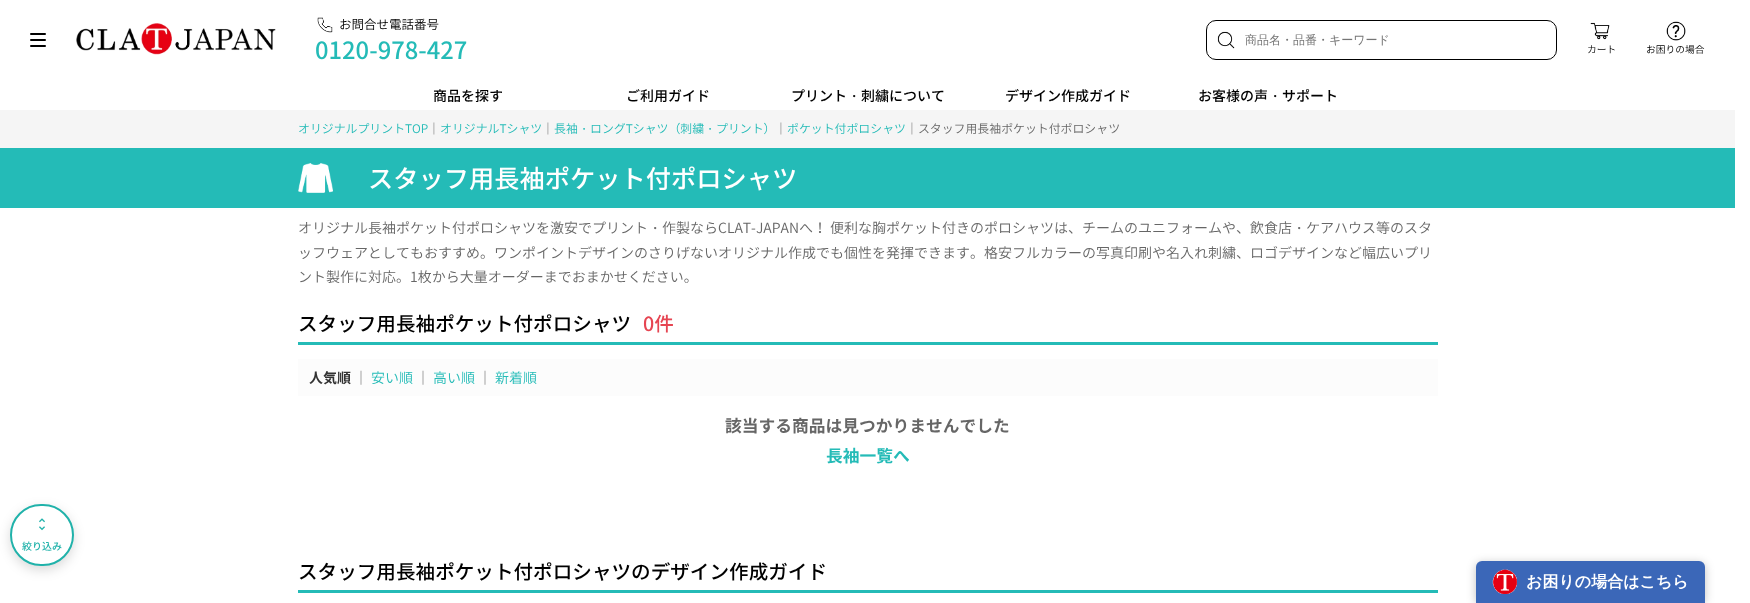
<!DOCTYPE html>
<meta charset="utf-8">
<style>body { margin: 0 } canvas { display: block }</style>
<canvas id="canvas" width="1750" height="603"></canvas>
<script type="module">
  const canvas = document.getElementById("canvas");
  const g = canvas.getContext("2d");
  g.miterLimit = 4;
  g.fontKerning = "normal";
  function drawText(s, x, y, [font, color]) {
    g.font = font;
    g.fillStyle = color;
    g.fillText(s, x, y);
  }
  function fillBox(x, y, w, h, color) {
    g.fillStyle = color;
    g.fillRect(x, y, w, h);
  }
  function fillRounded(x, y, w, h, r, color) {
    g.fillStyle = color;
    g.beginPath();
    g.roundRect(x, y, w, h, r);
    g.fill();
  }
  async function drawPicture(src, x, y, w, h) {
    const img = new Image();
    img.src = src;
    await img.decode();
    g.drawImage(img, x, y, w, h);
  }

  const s1 = ["300 12.5px Noto Sans CJK JP", "#000000"];
  const s2 = ["500 23.75px Noto Sans JP", "#24BBB7"];
  const s3 = ["500 12px WenQuanYi Zen Hei", "#757575"];
  const s4 = ["300 9.75px Noto Sans CJK JP", "#000000"];
  const s5 = ["500 14px Noto Sans JP", "#000000"];
  const s6 = ["500 14px WenQuanYi Zen Hei", "#000000"];
  const s7 = ["300 11.9px Noto Sans CJK JP", "#24BBB7"];
  const s8 = ["300 11.9px Noto Sans CJK JP", "#666666"];
  const s9 = ["500 11.9px WenQuanYi Zen Hei", "#24BBB7"];
  const s10 = ["500 25.25px Noto Sans JP", "#FFFFFF"];
  const s11 = ["500 10px Noto Sans JP", "#20B2AA"];
  const s12 = ["300 14px Noto Sans CJK JP", "#666666"];
  const s13 = ["500 14px WenQuanYi Zen Hei", "#666666"];
  const s14 = ["500 19.6px Noto Sans JP", "#000000"];
  const s15 = ["500 19.6px Noto Sans JP", "#E64552"];
  const s16 = ["bold 14px Noto Sans JP", "#333333"];
  const s17 = ["300 14px Noto Sans CJK JP", "#24BBB7"];
  const s18 = ["bold 16.75px Noto Sans JP", "#666666"];
  const s19 = ["bold 16.75px Noto Sans JP", "#24BBB7"];
  const s20 = ["bold 16px WenQuanYi Zen Hei", "#FFFFFF"];

  fillBox(0, 0, 1750, 603, "#FFFFFF");
  fillRounded(30, 33, 16, 2, 1, "#000000");
  fillRounded(30, 39, 16, 2, 1, "#000000");
  fillRounded(30, 45, 16, 2, 1, "#000000");
  await drawPicture("pic1.png", 76, 23, 200, 32);
  await drawPicture("pic2.png", 317, 17, 16, 16);
  drawText("お問合せ電話番号", 339, 29, s1);
  drawText("0120-978-427", 315, 59, s2);
  g.beginPath();
  g.roundRect(1206.5, 20.5, 350, 39, 9.5);
  g.strokeStyle = "#000000";
  g.stroke();
  await drawPicture("pic3.png", 1217, 31, 18, 18);
  drawText("商品名・品番・キーワード", 1245, 44, s3);
  await drawPicture("pic4.png", 1590, 22, 20, 18);
  drawText("カート", 1587, 53, s4);
  await drawPicture("pic5.png", 1666, 21, 20, 20);
  drawText("お困りの場合", 1646, 53, s4);
  drawText("商品を探す", 433, 101, s5);
  drawText("ご利用ガイド", 626, 101, s5);
  drawText("プリント", 791, 101, s5);
  drawText("・", 847, 101, s6);
  drawText("刺繍について", 861, 101, s5);
  drawText("デザイン作成ガイド", 1005, 101, s5);
  drawText("お客様の声", 1198, 101, s5);
  drawText("・", 1268, 101, s6);
  drawText("サポート", 1282, 101, s5);
  fillBox(0, 110, 1735, 38, "#F5F5F5");
  drawText("オリジナルプリントTOP", 298, 133, s7);
  drawText("｜", 428, 133, s8);
  drawText("オリジナルTシャツ", 440, 133, s7);
  drawText("｜", 542, 133, s8);
  drawText("長袖", 554, 133, s7);
  drawText("・", 578, 133, s9);
  drawText("ロングTシャツ（刺繍", 590, 133, s7);
  drawText("・", 704, 133, s9);
  drawText("プリント）", 716, 133, s7);
  drawText("｜", 775, 133, s8);
  drawText("ポケット付ポロシャツ", 787, 133, s7);
  drawText("｜スタッフ用長袖ポケット付ポロシャツ", 906, 133, s8);
  fillBox(0, 148, 1735, 60, "#24BBB7");
  await drawPicture("pic6.png", 298, 163, 35, 30);
  drawText("スタッフ用長袖ポケット付ポロシャツ", 368, 188, s10);
  g.fillStyle = "rgba(0, 0, 0, 0.15)";
  g.filter = "blur(6px)";
  g.beginPath();
  g.roundRect(10, 508, 64, 62, 31);
  g.fill();
  g.filter = "none";
  g.fillStyle = "#FFFFFF";
  g.beginPath();
  g.roundRect(11, 505, 62, 60, 30);
  g.fill();
  g.strokeStyle = "#20B2AA";
  g.lineWidth = 2;
  g.stroke();
  await drawPicture("pic7.png", 39, 518, 6, 13);
  drawText("絞り込み", 22, 550, s11);
  drawText("オリジナル長袖ポケット付ポロシャツを激安でプリント", 298, 233, s12);
  drawText("・", 648, 233, s13);
  drawText("作製ならCLAT-JAPANへ！ 便利な胸ポケット付きのポロシャツは、チームのユニフォームや、飲食店", 662, 233, s12);
  drawText("・", 1292, 233, s13);
  drawText("ケアハウス等のスタ", 1306, 233, s12);
  drawText("ッフウェアとしてもおすすめ。ワンポイントデザインのさりげないオリジナル作成でも個性を発揮できます。格安フルカラーの写真印刷や名入れ刺繍、ロゴデザインなど幅広いプリ", 298, 258, s12);
  drawText("ント製作に対応。1枚から大量オーダーまでおまかせください。", 298, 282, s12);
  fillBox(298, 342, 1140, 3, "#24BBB7");
  drawText("スタッフ用長袖ポケット付ポロシャツ", 298, 331, s14);
  drawText("0件", 643, 331, s15);
  fillBox(298, 359, 1140, 37, "#FCFCFC");
  drawText("人気順", 309, 383, s16);
  drawText("｜", 354, 383, s12);
  drawText("安い順", 371, 383, s17);
  drawText("｜", 416, 383, s12);
  drawText("高い順", 433, 383, s17);
  drawText("｜", 478, 383, s12);
  drawText("新着順", 495, 383, s17);
  drawText("該当する商品は見つかりませんでした", 725, 432, s18);
  drawText("長袖一覧へ", 826, 462, s19);
  fillBox(298, 590, 1140, 3, "#24BBB7");
  drawText("スタッフ用長袖ポケット付ポロシャツのデザイン作成ガイド", 298, 579, s14);
  g.fillStyle = "rgba(0, 0, 0, 0.25)";
  g.filter = "blur(5px)";
  g.beginPath();
  g.roundRect(1476, 563, 229, 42, 6);
  g.fill();
  g.filter = "none";
  g.fillStyle = "#3B67B8";
  g.beginPath();
  g.roundRect(1476, 561, 229, 42, [6, 6, 0, 0]);
  g.fill();
  await drawPicture("pic8.png", 1492, 569, 25, 25);
  drawText("お困りの場合はこちら", 1526, 587, s20);
</script>
